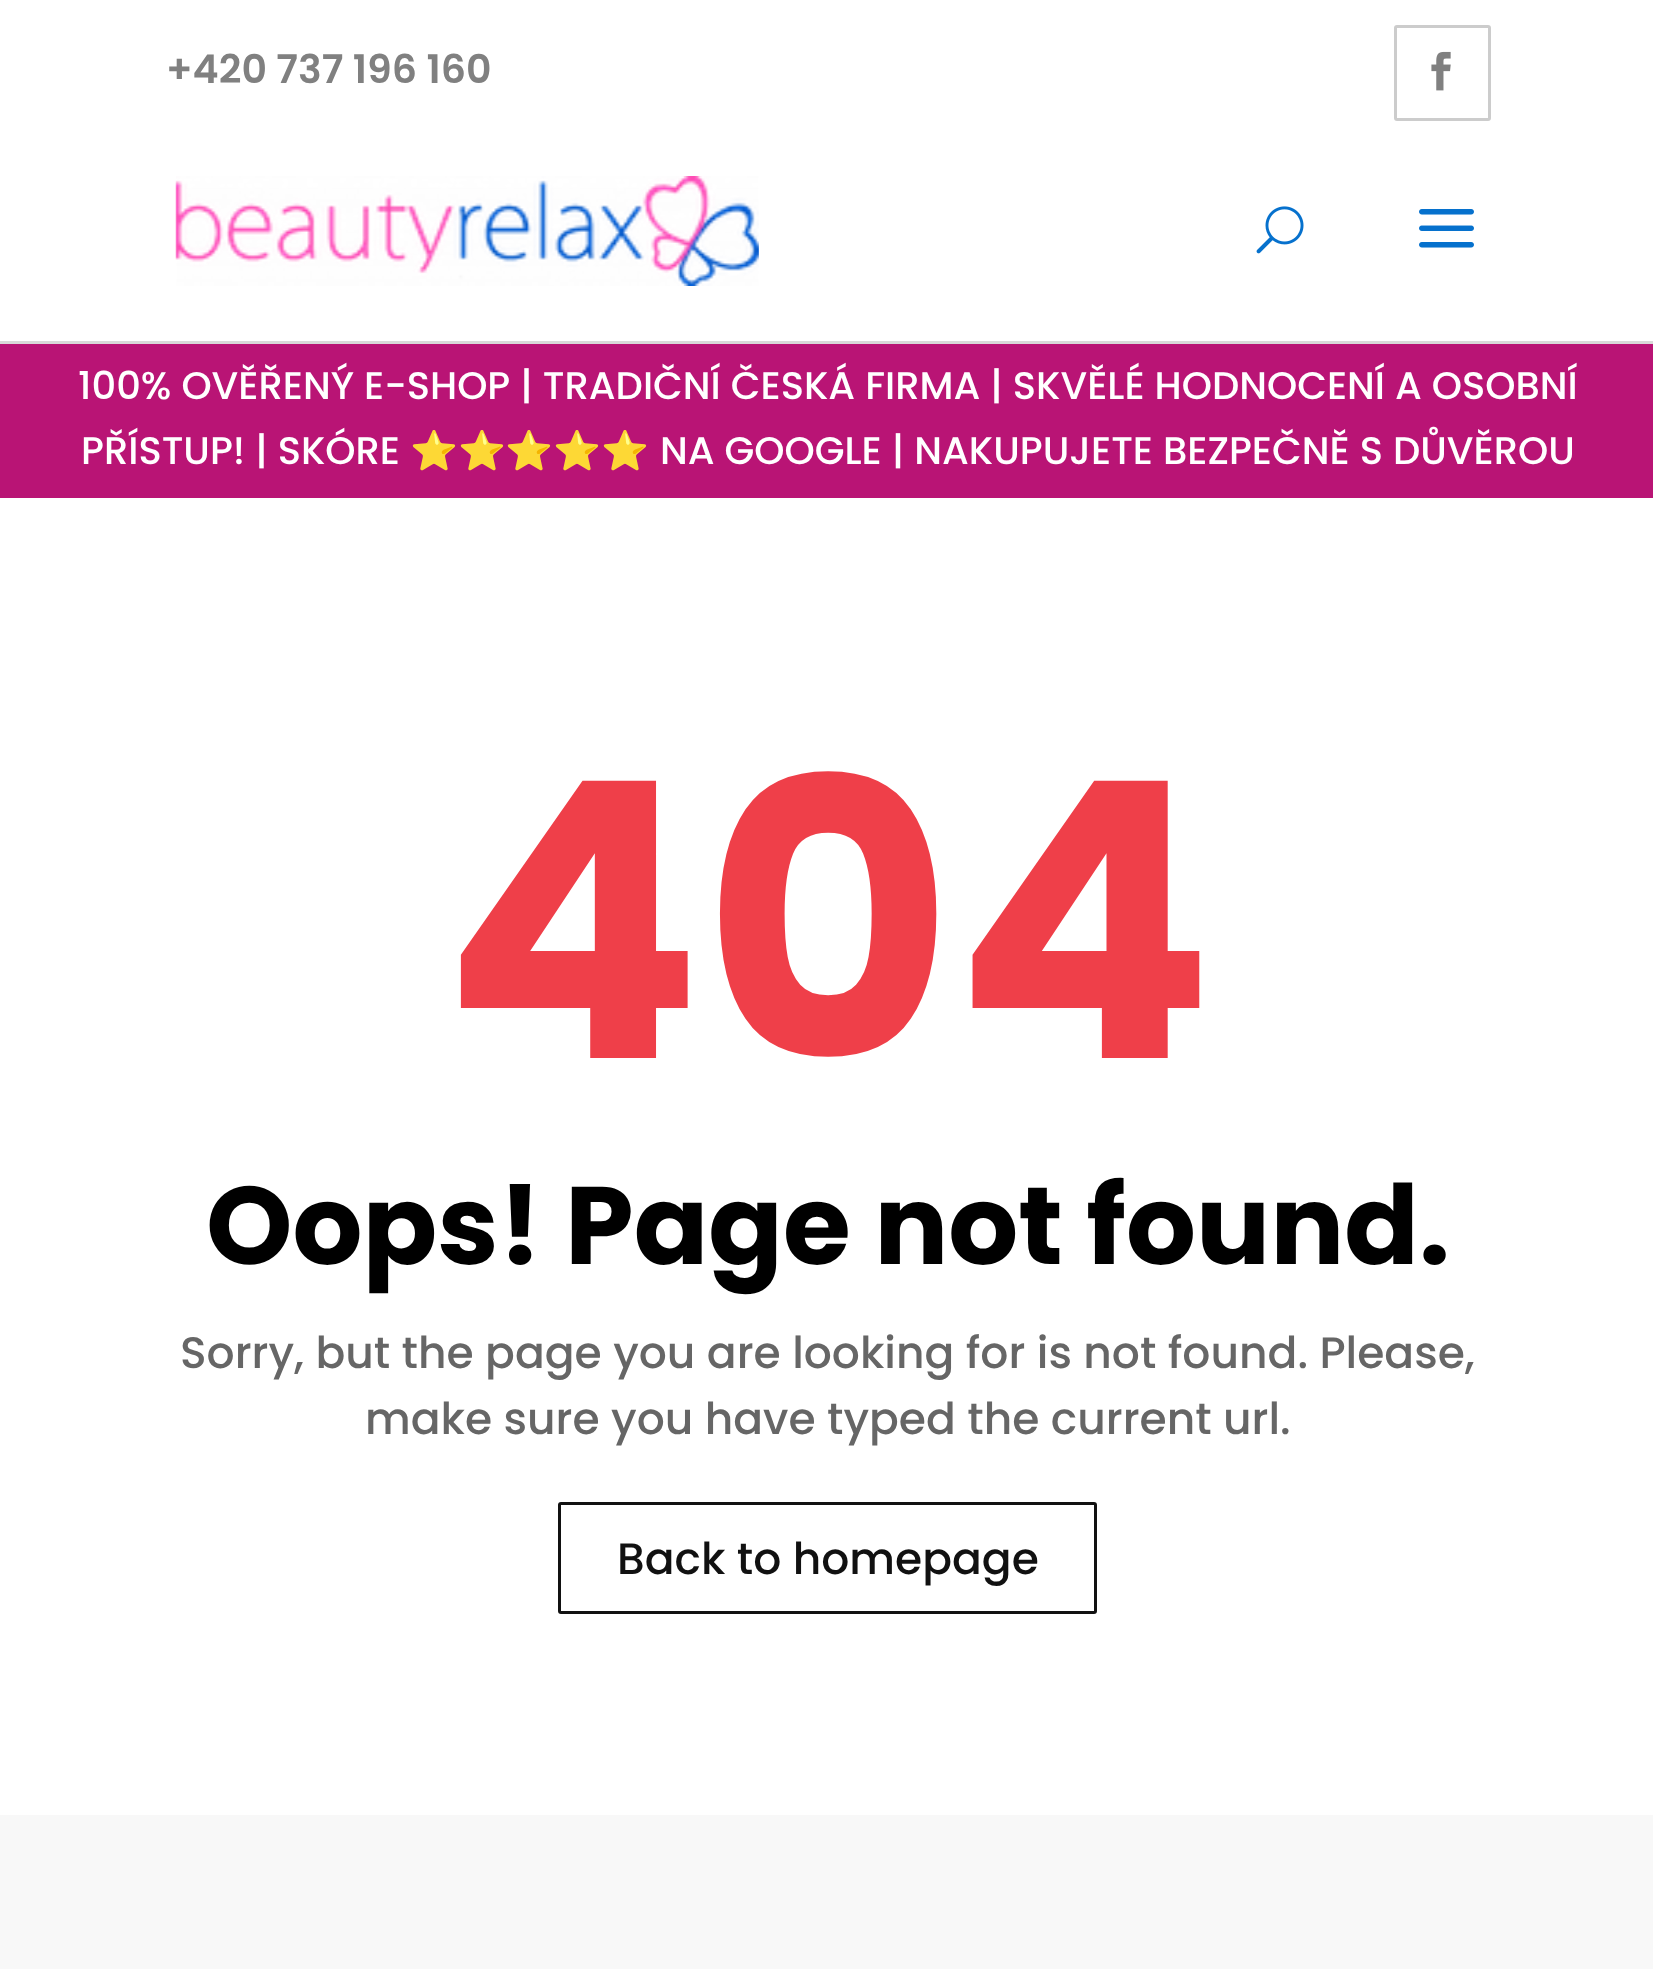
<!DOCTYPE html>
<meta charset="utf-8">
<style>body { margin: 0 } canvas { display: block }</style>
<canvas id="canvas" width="1653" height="1969"></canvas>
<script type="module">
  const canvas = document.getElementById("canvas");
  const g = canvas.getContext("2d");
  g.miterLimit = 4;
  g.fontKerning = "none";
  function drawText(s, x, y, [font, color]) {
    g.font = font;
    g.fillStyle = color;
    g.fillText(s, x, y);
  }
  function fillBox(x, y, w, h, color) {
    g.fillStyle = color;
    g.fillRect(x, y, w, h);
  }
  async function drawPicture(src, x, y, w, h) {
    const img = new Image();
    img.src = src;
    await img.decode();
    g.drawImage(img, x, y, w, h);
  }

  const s1 = ["600 39.5px Poppins", "#808080"];
  const s2 = ["500 38.5px Poppins", "#FFFFFF"];
  const s3 = ["38.5px Noto Color Emoji", "#FFFFFF"];
  const s4 = ["bold 385px Poppins", "#EF3F49"];
  const s5 = ["bold 110px Poppins", "#000000"];
  const s6 = ["500 44px Poppins", "#666666"];
  const s7 = ["500 44px Poppins", "#111111"];

  fillBox(0, 0, 1653, 1969, "#FFFFFF");
  drawText("+420 737 196 160", 166, 83, s1);
  g.beginPath();
  g.roundRect(1395.5, 26.5, 94, 93, 1.5);
  g.strokeStyle = "#CCCCCC";
  g.lineWidth = 3;
  g.stroke();
  await drawPicture("pic1.png", 1431, 51, 20, 40);
  fillBox(0, 341, 1653, 3, "#D9D9D9");
  await drawPicture("pic2.png", 175, 176, 584, 110);
  await drawPicture("pic3.png", 1256, 206, 48, 48);
  await drawPicture("pic4.png", 1419, 209, 55, 39);
  fillBox(0, 344, 1653, 154, "#B91475");
  drawText("100% OVĚŘENÝ E-SHOP | TRADIČNÍ ČESKÁ FIRMA | SKVĚLÉ HODNOCENÍ A OSOBNÍ", 78, 399, s2);
  drawText("PŘÍSTUP! | SKÓRE", 81, 464, s2);
  drawText("⭐⭐⭐⭐⭐", 410, 464, s3);
  drawText("NA GOOGLE | NAKUPUJETE BEZPEČNĚ S DŮVĚROU", 660, 464, s2);
  drawText("404", 442, 1058, s4);
  drawText("Oops! Page not found.", 206, 1264, s5);
  drawText("Sorry, but the page you are looking for is not found. Please,", 180, 1368, s6);
  drawText("make sure you have typed the current url.", 365, 1434, s6);
  g.beginPath();
  g.roundRect(559.5, 1503.5, 536, 109, 1.5);
  g.strokeStyle = "#111111";
  g.stroke();
  drawText("Back to homepage", 617, 1574, s7);
  fillBox(0, 1815, 1653, 154, "#F8F8F8");
</script>
